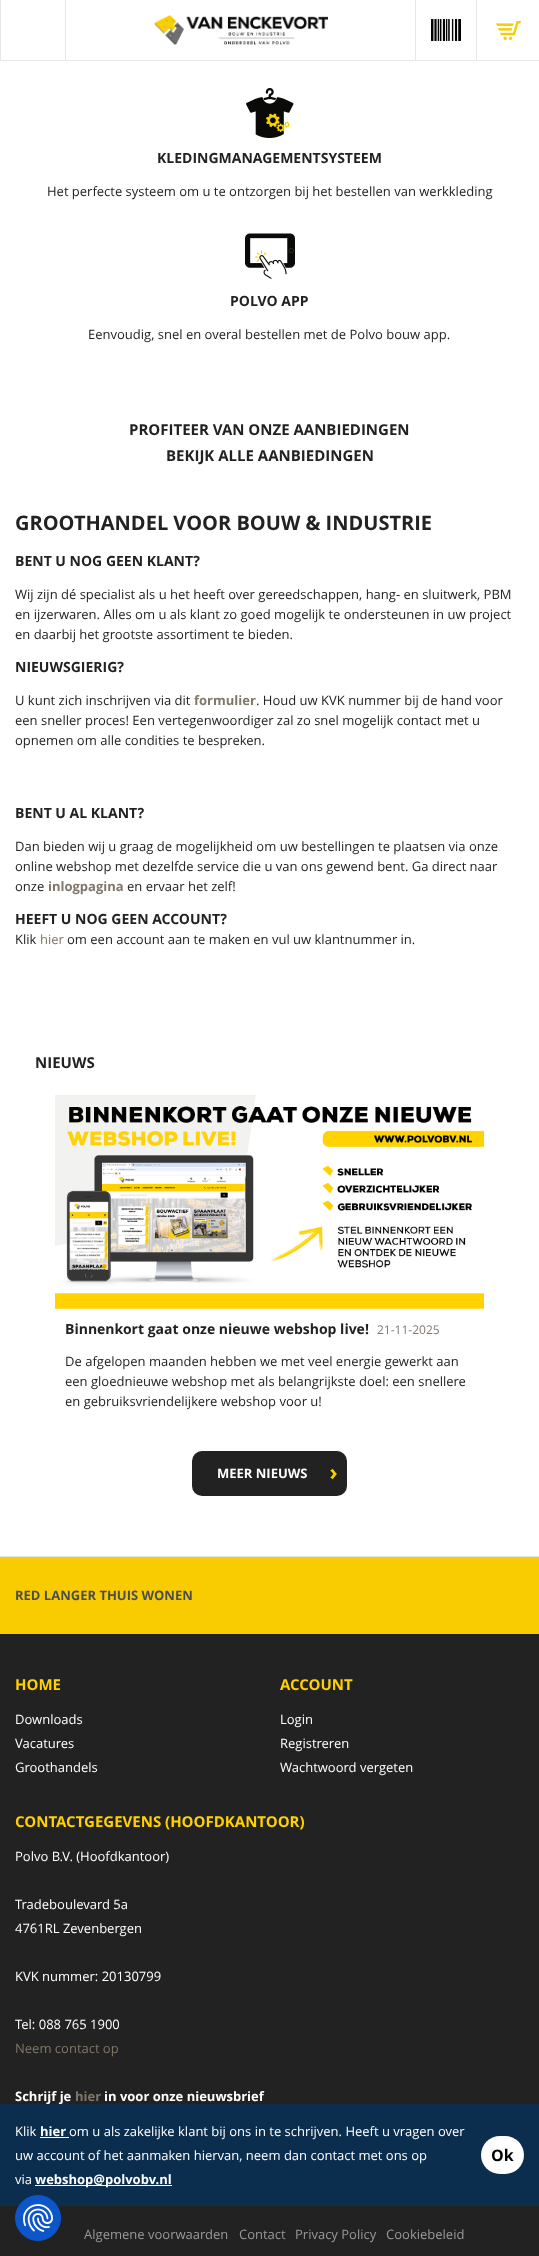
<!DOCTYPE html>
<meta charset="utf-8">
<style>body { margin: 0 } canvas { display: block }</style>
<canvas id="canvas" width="539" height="2256"></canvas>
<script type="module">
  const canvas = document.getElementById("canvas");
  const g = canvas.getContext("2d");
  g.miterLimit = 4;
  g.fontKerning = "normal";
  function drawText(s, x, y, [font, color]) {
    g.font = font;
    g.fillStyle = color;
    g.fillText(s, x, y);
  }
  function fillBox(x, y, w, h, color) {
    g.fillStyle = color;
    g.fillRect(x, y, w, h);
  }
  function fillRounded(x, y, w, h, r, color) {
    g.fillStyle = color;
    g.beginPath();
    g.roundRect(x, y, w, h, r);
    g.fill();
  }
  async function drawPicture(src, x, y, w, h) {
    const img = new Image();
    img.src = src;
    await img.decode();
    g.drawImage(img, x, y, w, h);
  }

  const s1 = ["bold 14px Open Sans", "#222222"];
  const s2 = ["13px Open Sans", "#222222"];
  const s3 = ["bold 15px Open Sans", "#222222"];
  const s4 = ["bold 20px Open Sans", "#222222"];
  const s5 = ["bold 13px Open Sans", "#807769"];
  const s6 = ["13px Open Sans", "#807769"];
  const s7 = ["12px Open Sans", "#807769"];
  const s8 = ["bold 13px Open Sans", "#FFFFFF"];
  const s9 = ["bold 13px Open Sans", "#4C4C4C"];
  const s10 = ["bold 15px Open Sans", "#FFD100"];
  const s11 = ["13px Open Sans", "#FFFFFF"];
  const s12 = ["13px Open Sans", "#999999"];
  const s13 = ["bold 16px Open Sans", "#000000"];

  fillBox(0, 0, 539, 2256, "#FFFFFF");
  fillBox(0, 60, 539, 1, "#E6E6E6");
  fillBox(65, 0, 1, 60, "#E6E6E6");
  fillBox(0, 0, 1, 60, "#E6E6E6");
  await drawPicture("pic1.png", 154, 15, 174, 30);
  await drawPicture("pic2.png", 431, 19, 30, 22);
  fillBox(415, 0, 1, 60, "#E6E6E6");
  fillBox(476, 0, 1, 60, "#E6E6E6");
  await drawPicture("pic3.png", 496, 21, 25, 19);
  await drawPicture("pic4.png", 246, 88, 48, 50);
  drawText("KLEDINGMANAGEMENTSYSTEEM", 157, 163, s1);
  drawText("Het perfecte systeem om u te ontzorgen bij het bestellen van werkkleding", 47, 196, s2);
  await drawPicture("pic5.png", 245, 233, 50, 46);
  drawText("POLVO APP", 230, 306, s1);
  drawText("Eenvoudig, snel en overal bestellen met de Polvo bouw app.", 88, 339, s2);
  drawText("PROFITEER VAN ONZE AANBIEDINGEN", 129, 435, s3);
  drawText("BEKIJK ALLE AANBIEDINGEN", 166, 461, s3);
  drawText("GROOTHANDEL VOOR BOUW & INDUSTRIE", 15, 530, s4);
  drawText("BENT U NOG GEEN KLANT?", 15, 566, s1);
  drawText("Wij zijn dé specialist als u het heeft over gereedschappen, hang- en sluitwerk, PBM", 15, 599, s2);
  drawText("en ijzerwaren. Alles om u als klant zo goed mogelijk te ondersteunen in uw project", 15, 619, s2);
  drawText("en daarbij het grootste assortiment te bieden.", 15, 639, s2);
  drawText("NIEUWSGIERIG?", 15, 672, s1);
  drawText("U kunt zich inschrijven via dit", 15, 705, s2);
  drawText("formulier", 194, 705, s5);
  drawText(". Houd uw KVK nummer bij de hand voor", 256, 705, s2);
  drawText("een sneller proces! Een vertegenwoordiger zal zo snel mogelijk contact met u", 15, 725, s2);
  drawText("opnemen om alle condities te bespreken.", 15, 745, s2);
  drawText("BENT U AL KLANT?", 15, 818, s1);
  drawText("Dan bieden wij u graag de mogelijkheid om uw bestellingen te plaatsen via onze", 15, 851, s2);
  drawText("online webshop met dezelfde service die u van ons gewend bent. Ga direct naar", 15, 871, s2);
  drawText("onze", 15, 891, s2);
  drawText("inlogpagina", 48, 891, s5);
  drawText("en ervaar het zelf!", 127, 891, s2);
  drawText("HEEFT U NOG GEEN ACCOUNT?", 15, 924, s1);
  drawText("Klik", 15, 944, s2);
  drawText("hier", 40, 944, s6);
  drawText("om een account aan te maken en vul uw klantnummer in.", 67, 944, s2);
  drawText("NIEUWS", 35, 1068, s3);
  await drawPicture("pic6.png", 55, 1095, 429, 214);
  drawText("Binnenkort gaat onze nieuwe webshop live!", 65, 1334, s1);
  drawText("21-11-2025", 377, 1334, s7);
  drawText("De afgelopen maanden hebben we met veel energie gewerkt aan", 65, 1366, s2);
  drawText("een gloednieuwe webshop met als belangrijkste doel: een snellere", 65, 1386, s2);
  drawText("en gebruiksvriendelijkere webshop voor u!", 65, 1406, s2);
  fillRounded(192, 1451, 155, 45, 10, "#222222");
  drawText("MEER NIEUWS", 217, 1478, s8);
  await drawPicture("pic7.png", 330, 1469, 7, 10);
  fillBox(0, 1634, 539, 622, "#222222");
  fillBox(0, 1556, 539, 1, "#E6E6E6");
  fillBox(0, 1557, 539, 77, "#F8CC01");
  drawText("RED LANGER THUIS WONEN", 15, 1600, s9);
  drawText("HOME", 15, 1690, s10);
  drawText("Downloads", 15, 1724, s11);
  drawText("Vacatures", 15, 1748, s11);
  drawText("Groothandels", 15, 1772, s11);
  drawText("ACCOUNT", 280, 1690, s10);
  drawText("Login", 280, 1724, s11);
  drawText("Registreren", 280, 1748, s11);
  drawText("Wachtwoord vergeten", 280, 1772, s11);
  drawText("CONTACTGEGEVENS (HOOFDKANTOOR)", 15, 1827, s10);
  drawText("Polvo B.V. (Hoofdkantoor)", 15, 1861, s11);
  drawText("Tradeboulevard 5a", 15, 1909, s11);
  drawText("4761RL Zevenbergen", 15, 1933, s11);
  drawText("KVK nummer: 20130799", 15, 1981, s11);
  drawText("Tel: 088 765 1900", 15, 2029, s11);
  drawText("Neem contact op", 15, 2053, s6);
  drawText("Schrijf je", 15, 2101, s8);
  drawText("hier", 75, 2101, s5);
  drawText("in voor onze nieuwsbrief", 104, 2101, s8);
  drawText("Algemene voorwaarden", 84, 2239, s12);
  drawText("Contact", 239, 2239, s12);
  drawText("Privacy Policy", 295, 2239, s12);
  drawText("Cookiebeleid", 386, 2239, s12);
  fillBox(0, 2104, 539, 102, "#0C2E4E");
  drawText("Klik", 15, 2136, s11);
  drawText("hier", 40, 2136, s8);
  fillBox(40, 2137, 29, 1, "#FFFFFF");
  drawText("om u als zakelijke klant bij ons in te schrijven. Heeft u vragen over", 69, 2136, s11);
  drawText("uw account of het aanmaken hiervan, neem dan contact met ons op", 15, 2160, s11);
  drawText("via", 15, 2184, s11);
  fillBox(35, 2185, 137, 1, "#FFFFFF");
  drawText("webshop@polvobv.nl", 35, 2184, s8);
  fillRounded(481, 2136, 43, 38, 19, "#FFFFFF");
  drawText("Ok", 491, 2161, s13);
  g.fillStyle = "#0D56C9";
  g.beginPath();
  g.arc(38, 2218, 22.5, 0, Math.PI * 2);
  g.fill();
  g.strokeStyle = "#0D56C9";
  g.stroke();
  await drawPicture("pic8.png", 23, 2204, 30, 28);
</script>
